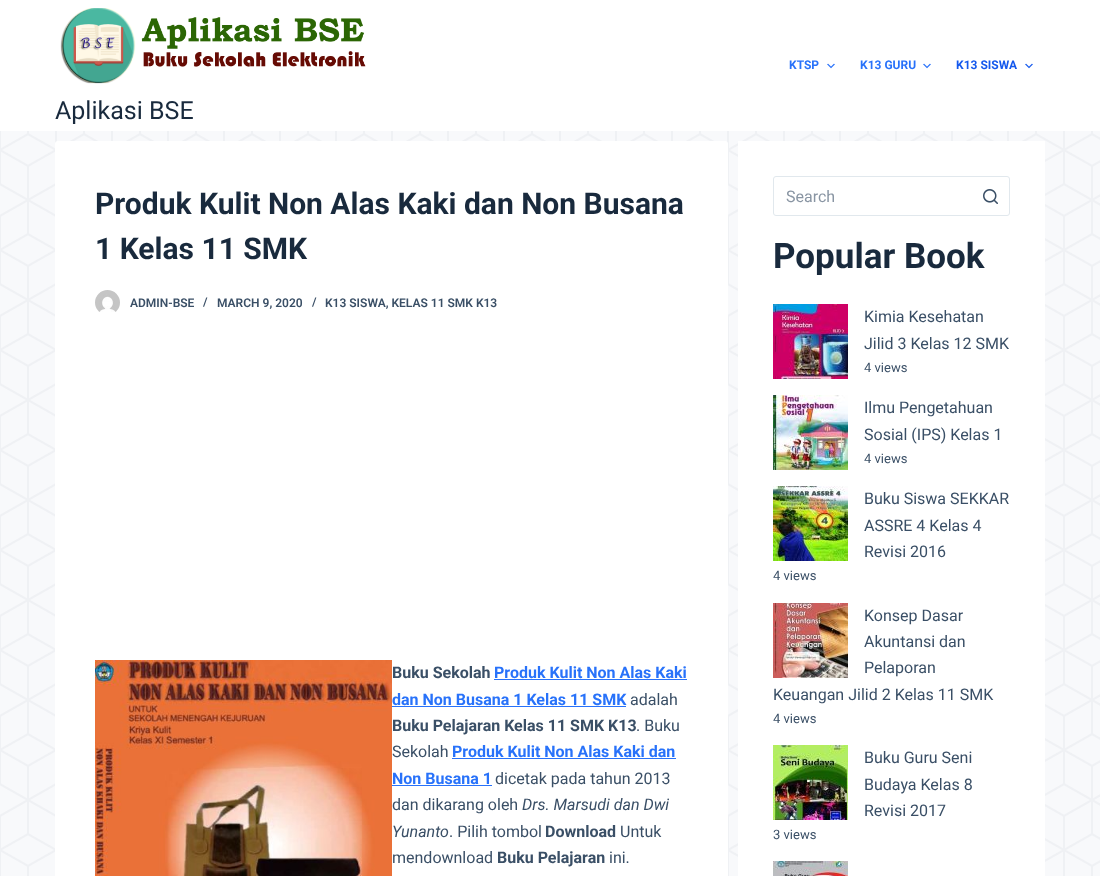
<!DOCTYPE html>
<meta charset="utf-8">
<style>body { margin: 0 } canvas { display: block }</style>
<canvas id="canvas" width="1100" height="876"></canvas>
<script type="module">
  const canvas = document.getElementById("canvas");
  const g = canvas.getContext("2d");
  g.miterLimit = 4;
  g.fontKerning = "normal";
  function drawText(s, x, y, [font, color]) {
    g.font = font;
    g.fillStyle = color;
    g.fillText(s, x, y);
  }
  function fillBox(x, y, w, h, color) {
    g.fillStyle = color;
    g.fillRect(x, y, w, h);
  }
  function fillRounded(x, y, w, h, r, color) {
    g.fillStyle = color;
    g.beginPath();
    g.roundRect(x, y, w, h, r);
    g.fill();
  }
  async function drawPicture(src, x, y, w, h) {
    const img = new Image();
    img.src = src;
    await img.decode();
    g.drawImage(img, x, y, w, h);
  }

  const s1 = ["bold 12px Roboto", "#2872FA"];
  const s2 = ["bold 12px Roboto", "#1559ED"];
  const s3 = ["25px Roboto", "#192A3D"];
  const s4 = ["bold 30px Roboto", "#192A3D"];
  const s5 = ["600 12px Roboto", "#3A4F66"];
  const s6 = ["bold 16px Roboto", "#3A4F66"];
  const s7 = ["bold 16px Roboto", "#2872FA"];
  const s8 = ["16px Roboto", "#3A4F66"];
  const s9 = ["italic 16px Roboto", "#3A4F66"];
  const s10 = ["16px Roboto", "#8995A3"];
  const s11 = ["bold 35px Roboto", "#192A3D"];
  const s12 = ["13px Roboto", "#3A4F66"];

  fillBox(0, 0, 1100, 876, "#F8F9FB");
  await drawPicture("pic1.png", 0, 131, 1100, 745);
  fillBox(0, 0, 1100, 131, "#FFFFFF");
  drawText("KTSP", 789, 69, s1);
  await drawPicture("pic2.png", 827, 63, 8, 6);
  drawText("K13 GURU", 860, 69, s1);
  await drawPicture("pic2.png", 923, 63, 8, 6);
  drawText("K13 SISWA", 956, 69, s2);
  await drawPicture("pic3.png", 1025, 63, 8, 6);
  await drawPicture("pic4.png", 60, 8, 306, 76);
  drawText("Aplikasi BSE", 55, 119, s3);
  fillRounded(55, 141, 673, 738, 3, "#FFFFFF");
  drawText("Produk Kulit Non Alas Kaki dan Non Busana", 95, 214, s4);
  drawText("1 Kelas 11 SMK", 95, 259, s4);
  await drawPicture("pic5.png", 95, 290, 25, 22);
  drawText("ADMIN-BSE", 130, 307, s5);
  drawText("/", 203, 306, s5);
  drawText("MARCH 9, 2020", 217, 307, s5);
  drawText("/", 312, 306, s5);
  drawText("K13 SISWA, KELAS 11 SMK K13", 325, 307, s5);
  await drawPicture("pic6.png", 95, 660, 297, 216);
  drawText("Buku Sekolah", 392, 678, s6);
  drawText("Produk Kulit Non Alas Kaki", 494, 678, s7);
  fillBox(494, 679, 193, 1, "#2872FA");
  drawText("dan Non Busana 1 Kelas 11 SMK", 392, 705, s7);
  fillBox(392, 706, 234, 1, "#2872FA");
  drawText("adalah", 630, 705, s8);
  drawText("Buku Pelajaran Kelas 11 SMK K13", 392, 731, s6);
  drawText(". Buku", 636, 731, s8);
  drawText("Sekolah", 392, 757, s8);
  drawText("Produk Kulit Non Alas Kaki dan", 452, 757, s7);
  fillBox(452, 758, 224, 1, "#2872FA");
  drawText("Non Busana 1", 392, 784, s7);
  fillBox(392, 785, 100, 1, "#2872FA");
  drawText("dicetak pada tahun 2013", 495, 784, s8);
  drawText("dan dikarang oleh", 392, 810, s8);
  drawText("Drs. Marsudi dan Dwi", 522, 810, s9);
  drawText("Yunanto", 392, 837, s9);
  drawText(". Pilih tombol", 449, 837, s8);
  drawText("Download", 545, 837, s6);
  drawText("Untuk", 620, 837, s8);
  drawText("mendownload", 392, 863, s8);
  drawText("Buku Pelajaran", 497, 863, s6);
  drawText("ini.", 609, 863, s8);
  fillBox(738, 141, 307, 735, "#FFFFFF");
  g.beginPath();
  g.roundRect(773.5, 176.5, 236, 39, 2.5);
  g.strokeStyle = "#E1E8ED";
  g.stroke();
  drawText("Search", 786, 202, s10);
  await drawPicture("pic7.png", 983, 189, 15, 15);
  drawText("Popular Book", 773, 268, s11);
  await drawPicture("pic8.png", 773, 304, 75, 75);
  drawText("Kimia Kesehatan", 864, 322, s8);
  drawText("Jilid 3 Kelas 12 SMK", 864, 349, s8);
  drawText("4 views", 864, 372, s12);
  await drawPicture("pic9.png", 773, 395, 75, 75);
  drawText("Ilmu Pengetahuan", 864, 413, s8);
  drawText("Sosial (IPS) Kelas 1", 864, 440, s8);
  drawText("4 views", 864, 463, s12);
  await drawPicture("pic10.png", 773, 486, 75, 75);
  drawText("Buku Siswa SEKKAR", 864, 504, s8);
  drawText("ASSRE 4 Kelas 4", 864, 531, s8);
  drawText("Revisi 2016", 864, 557, s8);
  drawText("4 views", 773, 580, s12);
  await drawPicture("pic11.png", 773, 603, 75, 75);
  drawText("Konsep Dasar", 864, 621, s8);
  drawText("Akuntansi dan", 864, 647, s8);
  drawText("Pelaporan", 864, 673, s8);
  drawText("Keuangan Jilid 2 Kelas 11 SMK", 773, 700, s8);
  drawText("4 views", 773, 723, s12);
  await drawPicture("pic12.png", 773, 745, 75, 75);
  drawText("Buku Guru Seni", 864, 763, s8);
  drawText("Budaya Kelas 8", 864, 790, s8);
  drawText("Revisi 2017", 864, 816, s8);
  drawText("3 views", 773, 839, s12);
  await drawPicture("pic13.png", 773, 861, 75, 15);
</script>
